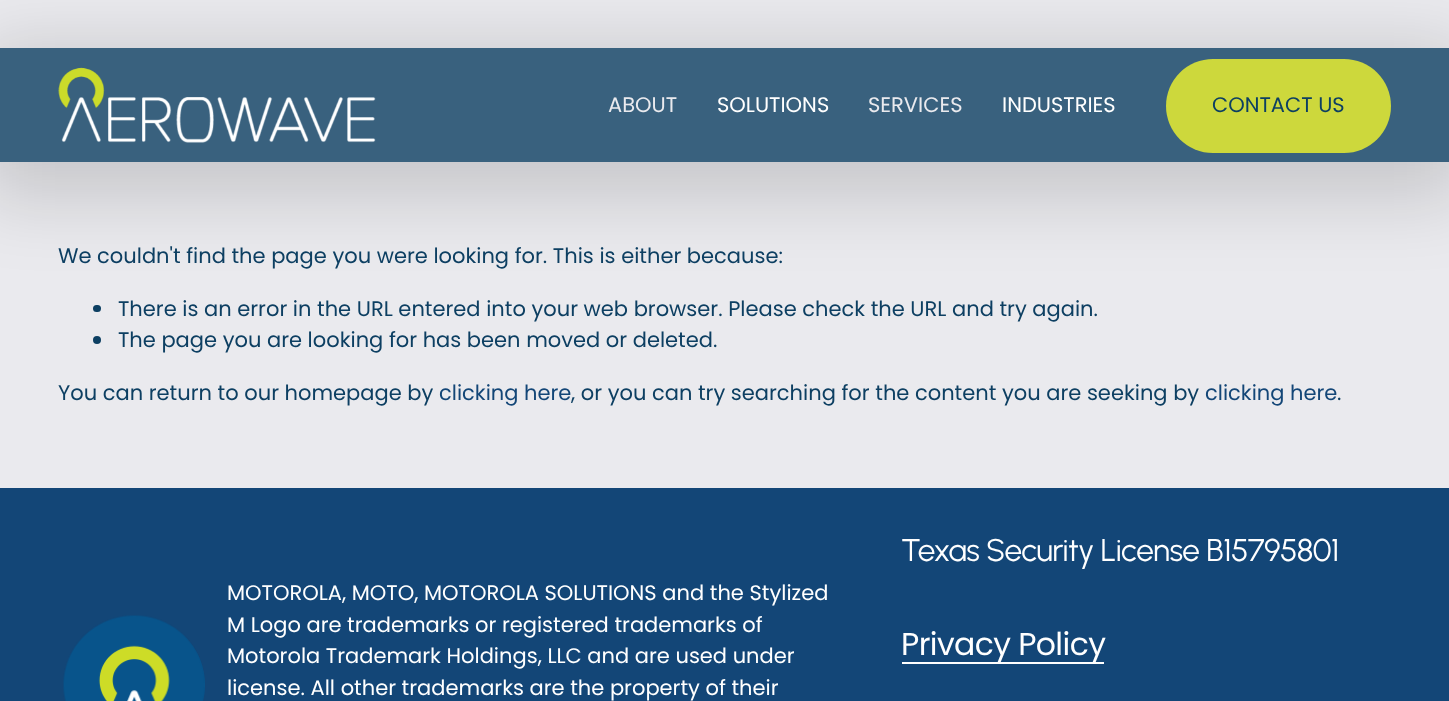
<!DOCTYPE html>
<meta charset="utf-8">
<style>body { margin: 0 } canvas { display: block }</style>
<canvas id="canvas" width="1449" height="701"></canvas>
<script type="module">
  const canvas = document.getElementById("canvas");
  const g = canvas.getContext("2d");
  g.miterLimit = 4;
  g.fontKerning = "normal";
  function drawText(s, x, y, [font, color]) {
    g.font = font;
    g.fillStyle = color;
    g.fillText(s, x, y);
  }
  function fillBox(x, y, w, h, color) {
    g.fillStyle = color;
    g.fillRect(x, y, w, h);
  }
  function fillRounded(x, y, w, h, r, color) {
    g.fillStyle = color;
    g.beginPath();
    g.roundRect(x, y, w, h, r);
    g.fill();
  }
  async function drawPicture(src, x, y, w, h) {
    const img = new Image();
    img.src = src;
    await img.decode();
    g.drawImage(img, x, y, w, h);
  }

  const s1 = ["21px Poppins", "#EAEAEE"];
  const s2 = ["21px Poppins", "#FFFFFF"];
  const s3 = ["21px Poppins", "#0D3F62"];
  const s4 = ["21px Poppins", "#134677"];
  const s5 = ["31.5px Urbanist", "#FFFFFF"];
  const s6 = ["31.5px Poppins", "#FFFFFF"];

  fillBox(0, 0, 1449, 701, "#EAEAEE");
  fillRounded(93, 305, 8, 7, 3.5, "#0D3F62");
  g.fillStyle = "rgba(0, 0, 0, 0.15)";
  g.filter = "blur(36px)";
  g.beginPath();
  g.rect(-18, 48, 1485, 150);
  g.fill();
  g.filter = "none";
  fillBox(0, 48, 1449, 114, "#39617E");
  await drawPicture("pic1.png", 58, 67, 318, 76);
  drawText("ABOUT", 608, 112, s1);
  drawText("SOLUTIONS", 717, 112, s2);
  drawText("SERVICES", 868, 112, s1);
  drawText("INDUSTRIES", 1002, 112, s2);
  fillRounded(1166, 59, 225, 94, 47, "#CDD83C");
  drawText("CONTACT US", 1212, 112, s3);
  drawText("We couldn't find the page you were looking for. This is either because:", 58, 263, s3);
  drawText("There is an error in the URL entered into your web browser. Please check the URL and try again.", 118, 316, s3);
  g.beginPath();
  g.arc(97, 340, 4, 0, Math.PI * 2);
  g.fill();
  drawText("The page you are looking for has been moved or deleted.", 118, 347, s3);
  drawText("You can return to our homepage by", 58, 400, s3);
  drawText("clicking here", 439, 400, s4);
  drawText(", or you can try searching for the content you are seeking by", 571, 400, s3);
  drawText("clicking here", 1205, 400, s4);
  drawText(".", 1337, 400, s3);
  fillBox(0, 488, 1449, 213, "#134677");
  await drawPicture("pic2.png", 63, 615, 142, 86);
  drawText("MOTOROLA, MOTO, MOTOROLA SOLUTIONS and the Stylized", 227, 600, s2);
  drawText("M Logo are trademarks or registered trademarks of", 227, 632, s2);
  drawText("Motorola Trademark Holdings, LLC and are used under", 227, 663, s2);
  drawText("license. All other trademarks are the property of their", 227, 695, s2);
  g.letterSpacing = "-0.6px";
  drawText("Texas Security License B15795801", 901, 561, s5);
  fillBox(902, 662, 202, 2, "#FFFFFF");
  drawText("Privacy Policy", 901, 655, s6);
</script>
